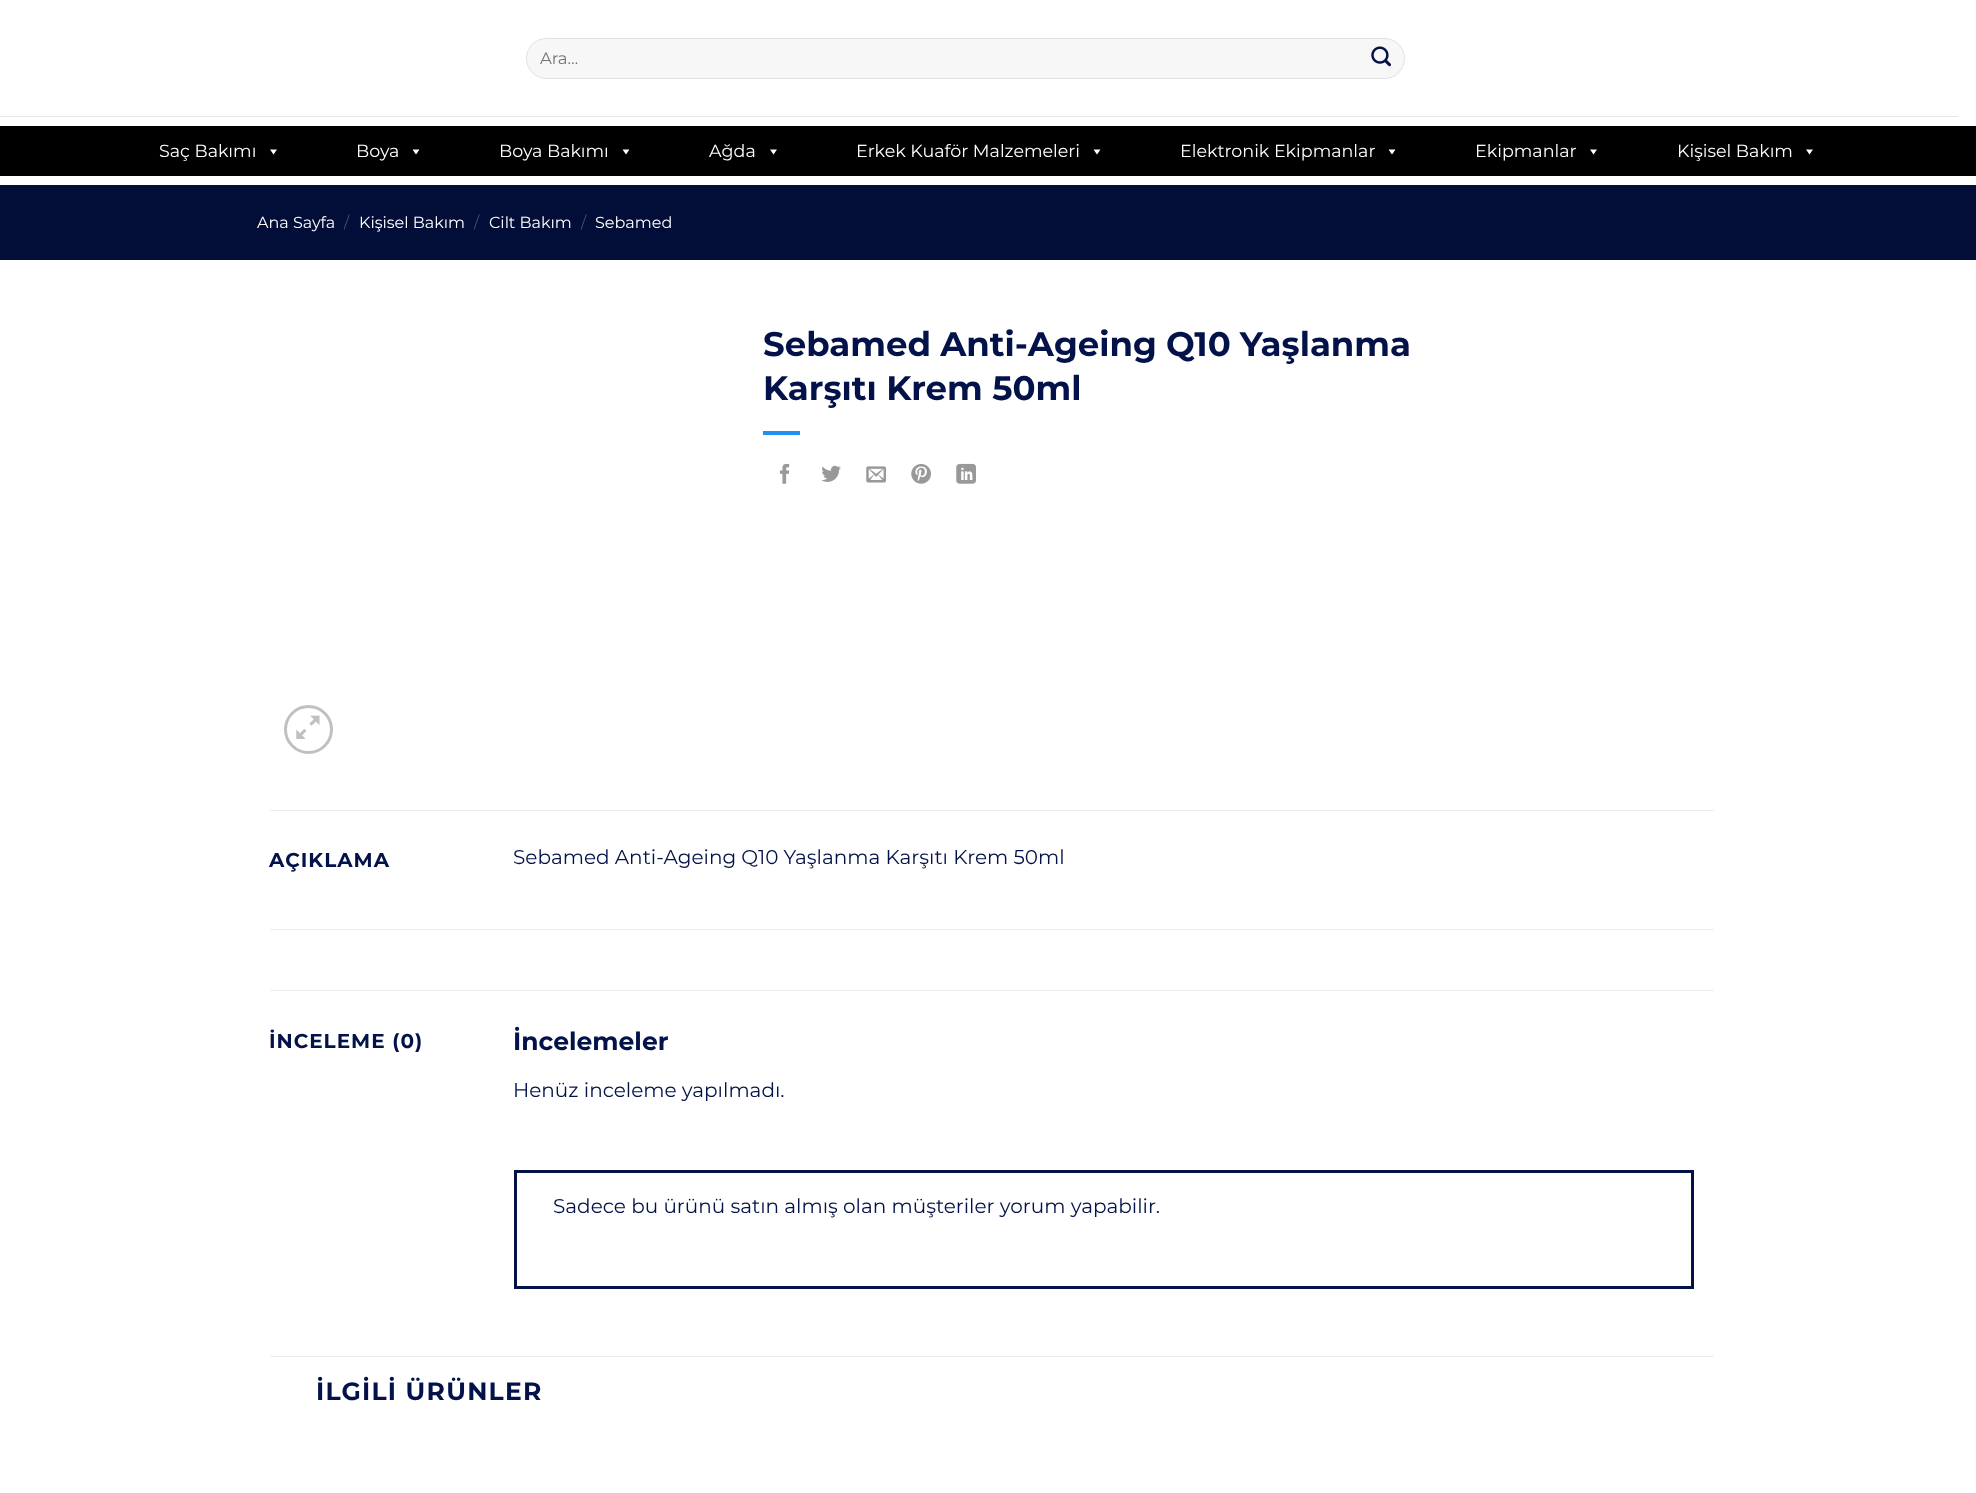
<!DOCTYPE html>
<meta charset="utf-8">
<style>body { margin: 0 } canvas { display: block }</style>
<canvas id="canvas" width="1976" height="1493"></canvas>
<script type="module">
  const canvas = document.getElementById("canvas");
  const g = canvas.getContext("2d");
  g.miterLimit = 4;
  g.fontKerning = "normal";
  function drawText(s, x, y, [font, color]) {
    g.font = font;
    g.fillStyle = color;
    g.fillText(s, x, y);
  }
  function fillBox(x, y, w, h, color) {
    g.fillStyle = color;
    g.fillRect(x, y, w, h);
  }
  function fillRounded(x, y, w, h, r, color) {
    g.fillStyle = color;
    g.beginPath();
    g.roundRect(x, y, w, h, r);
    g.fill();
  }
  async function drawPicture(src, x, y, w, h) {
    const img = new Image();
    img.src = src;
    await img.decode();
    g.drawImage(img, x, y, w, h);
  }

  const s1 = ["16.5px Montserrat", "#757575"];
  const s2 = ["17.5px Montserrat", "#FFFFFF"];
  const s3 = ["16px Montserrat", "#FFFFFF"];
  const s4 = ["300 16px Montserrat", "#5B627D"];
  const s5 = ["bold 34px Montserrat", "#031249"];
  const s6 = ["bold 20px Montserrat", "#031249"];
  const s7 = ["20px Montserrat", "#031249"];
  const s8 = ["bold 25px Montserrat", "#031249"];

  fillBox(0, 0, 1976, 1493, "#FFFFFF");
  fillRounded(526, 38, 879, 41, 20.5, "#F7F7F7");
  g.beginPath();
  g.roundRect(526.5, 38.5, 878, 40, 20);
  g.strokeStyle = "rgba(0, 0, 0, 0.09)";
  g.stroke();
  drawText("Ara…", 540, 64, s1);
  await drawPicture("pic1.png", 1371, 46, 20, 21);
  fillBox(0, 116, 1958, 1, "#E6E7ED");
  fillBox(0, 126, 1976, 50, "#000000");
  drawText("Saç Bakımı", 159, 157, s2);
  g.beginPath();
  g.moveTo(277, 149.5);
  g.lineTo(273.5, 154.5);
  g.lineTo(270, 149.5);
  g.closePath();
  g.fill();
  drawText("Boya", 356, 157, s2);
  g.beginPath();
  g.moveTo(419.5, 149.5);
  g.lineTo(416, 154.5);
  g.lineTo(412.5, 149.5);
  g.closePath();
  g.fill();
  drawText("Boya Bakımı", 499, 157, s2);
  g.beginPath();
  g.moveTo(629.5, 149.5);
  g.lineTo(626, 154.5);
  g.lineTo(622.5, 149.5);
  g.closePath();
  g.fill();
  drawText("Ağda", 709, 157, s2);
  g.beginPath();
  g.moveTo(777, 149.5);
  g.lineTo(773.5, 154.5);
  g.lineTo(770, 149.5);
  g.closePath();
  g.fill();
  drawText("Erkek Kuaför Malzemeleri", 856, 157, s2);
  g.beginPath();
  g.moveTo(1100.5, 149.5);
  g.lineTo(1097, 154.5);
  g.lineTo(1093.5, 149.5);
  g.closePath();
  g.fill();
  drawText("Elektronik Ekipmanlar", 1180, 157, s2);
  g.beginPath();
  g.moveTo(1395.5, 149.5);
  g.lineTo(1392, 154.5);
  g.lineTo(1388.5, 149.5);
  g.closePath();
  g.fill();
  drawText("Ekipmanlar", 1475, 157, s2);
  g.beginPath();
  g.moveTo(1597, 149.5);
  g.lineTo(1593.5, 154.5);
  g.lineTo(1590, 149.5);
  g.closePath();
  g.fill();
  drawText("Kişisel Bakım", 1677, 157, s2);
  g.beginPath();
  g.moveTo(1813, 149.5);
  g.lineTo(1809.5, 154.5);
  g.lineTo(1806, 149.5);
  g.closePath();
  g.fill();
  fillBox(0, 185, 1976, 75, "#020E37");
  drawText("Ana Sayfa", 257, 228, s3);
  drawText("/", 344, 228, s4);
  drawText("Kişisel Bakım", 359, 228, s3);
  drawText("/", 474, 228, s4);
  drawText("Cilt Bakım", 489, 228, s3);
  drawText("/", 581, 228, s4);
  drawText("Sebamed", 595, 228, s3);
  g.wordSpacing = "-0.5px";
  drawText("Sebamed Anti-Ageing Q10 Yaşlanma", 763, 356, s5);
  g.wordSpacing = "0px";
  drawText("Karşıtı Krem 50ml", 763, 400, s5);
  fillBox(763, 431, 37, 4, "#2290F0");
  await drawPicture("pic2.png", 779, 463, 11, 21);
  await drawPicture("pic3.png", 821, 465, 20, 17);
  await drawPicture("pic4.png", 866, 466, 20, 17);
  await drawPicture("pic5.png", 911, 464, 20, 20);
  await drawPicture("pic6.png", 956, 463, 20, 21);
  g.beginPath();
  g.arc(308.5, 729.5, 23, 0, Math.PI * 2);
  g.strokeStyle = "#C0C0C0";
  g.lineWidth = 3;
  g.stroke();
  await drawPicture("pic7.png", 296, 715, 24, 24);
  fillBox(270, 810, 1444, 1, "#ECECEC");
  g.letterSpacing = "1px";
  drawText("AÇIKLAMA", 269, 867, s6);
  g.letterSpacing = "0px";
  drawText("Sebamed Anti-Ageing Q10 Yaşlanma Karşıtı Krem 50ml", 513, 864, s7);
  fillBox(270, 929, 1444, 1, "#ECECEC");
  fillBox(270, 990, 1444, 1, "#ECECEC");
  g.letterSpacing = "1px";
  drawText("İNCELEME (0)", 269, 1048, s6);
  g.letterSpacing = "0px";
  drawText("İncelemeler", 513, 1050, s8);
  drawText("Henüz inceleme yapılmadı.", 513, 1097, s7);
  g.strokeStyle = "#031249";
  g.strokeRect(515.5, 1171.5, 1177, 116);
  drawText("Sadece bu ürünü satın almış olan müşteriler yorum yapabilir.", 553, 1213, s7);
  fillBox(270, 1356, 1444, 1, "#ECECEC");
  g.letterSpacing = "1.25px";
  drawText("İLGİLİ ÜRÜNLER", 316, 1400, s8);
</script>
